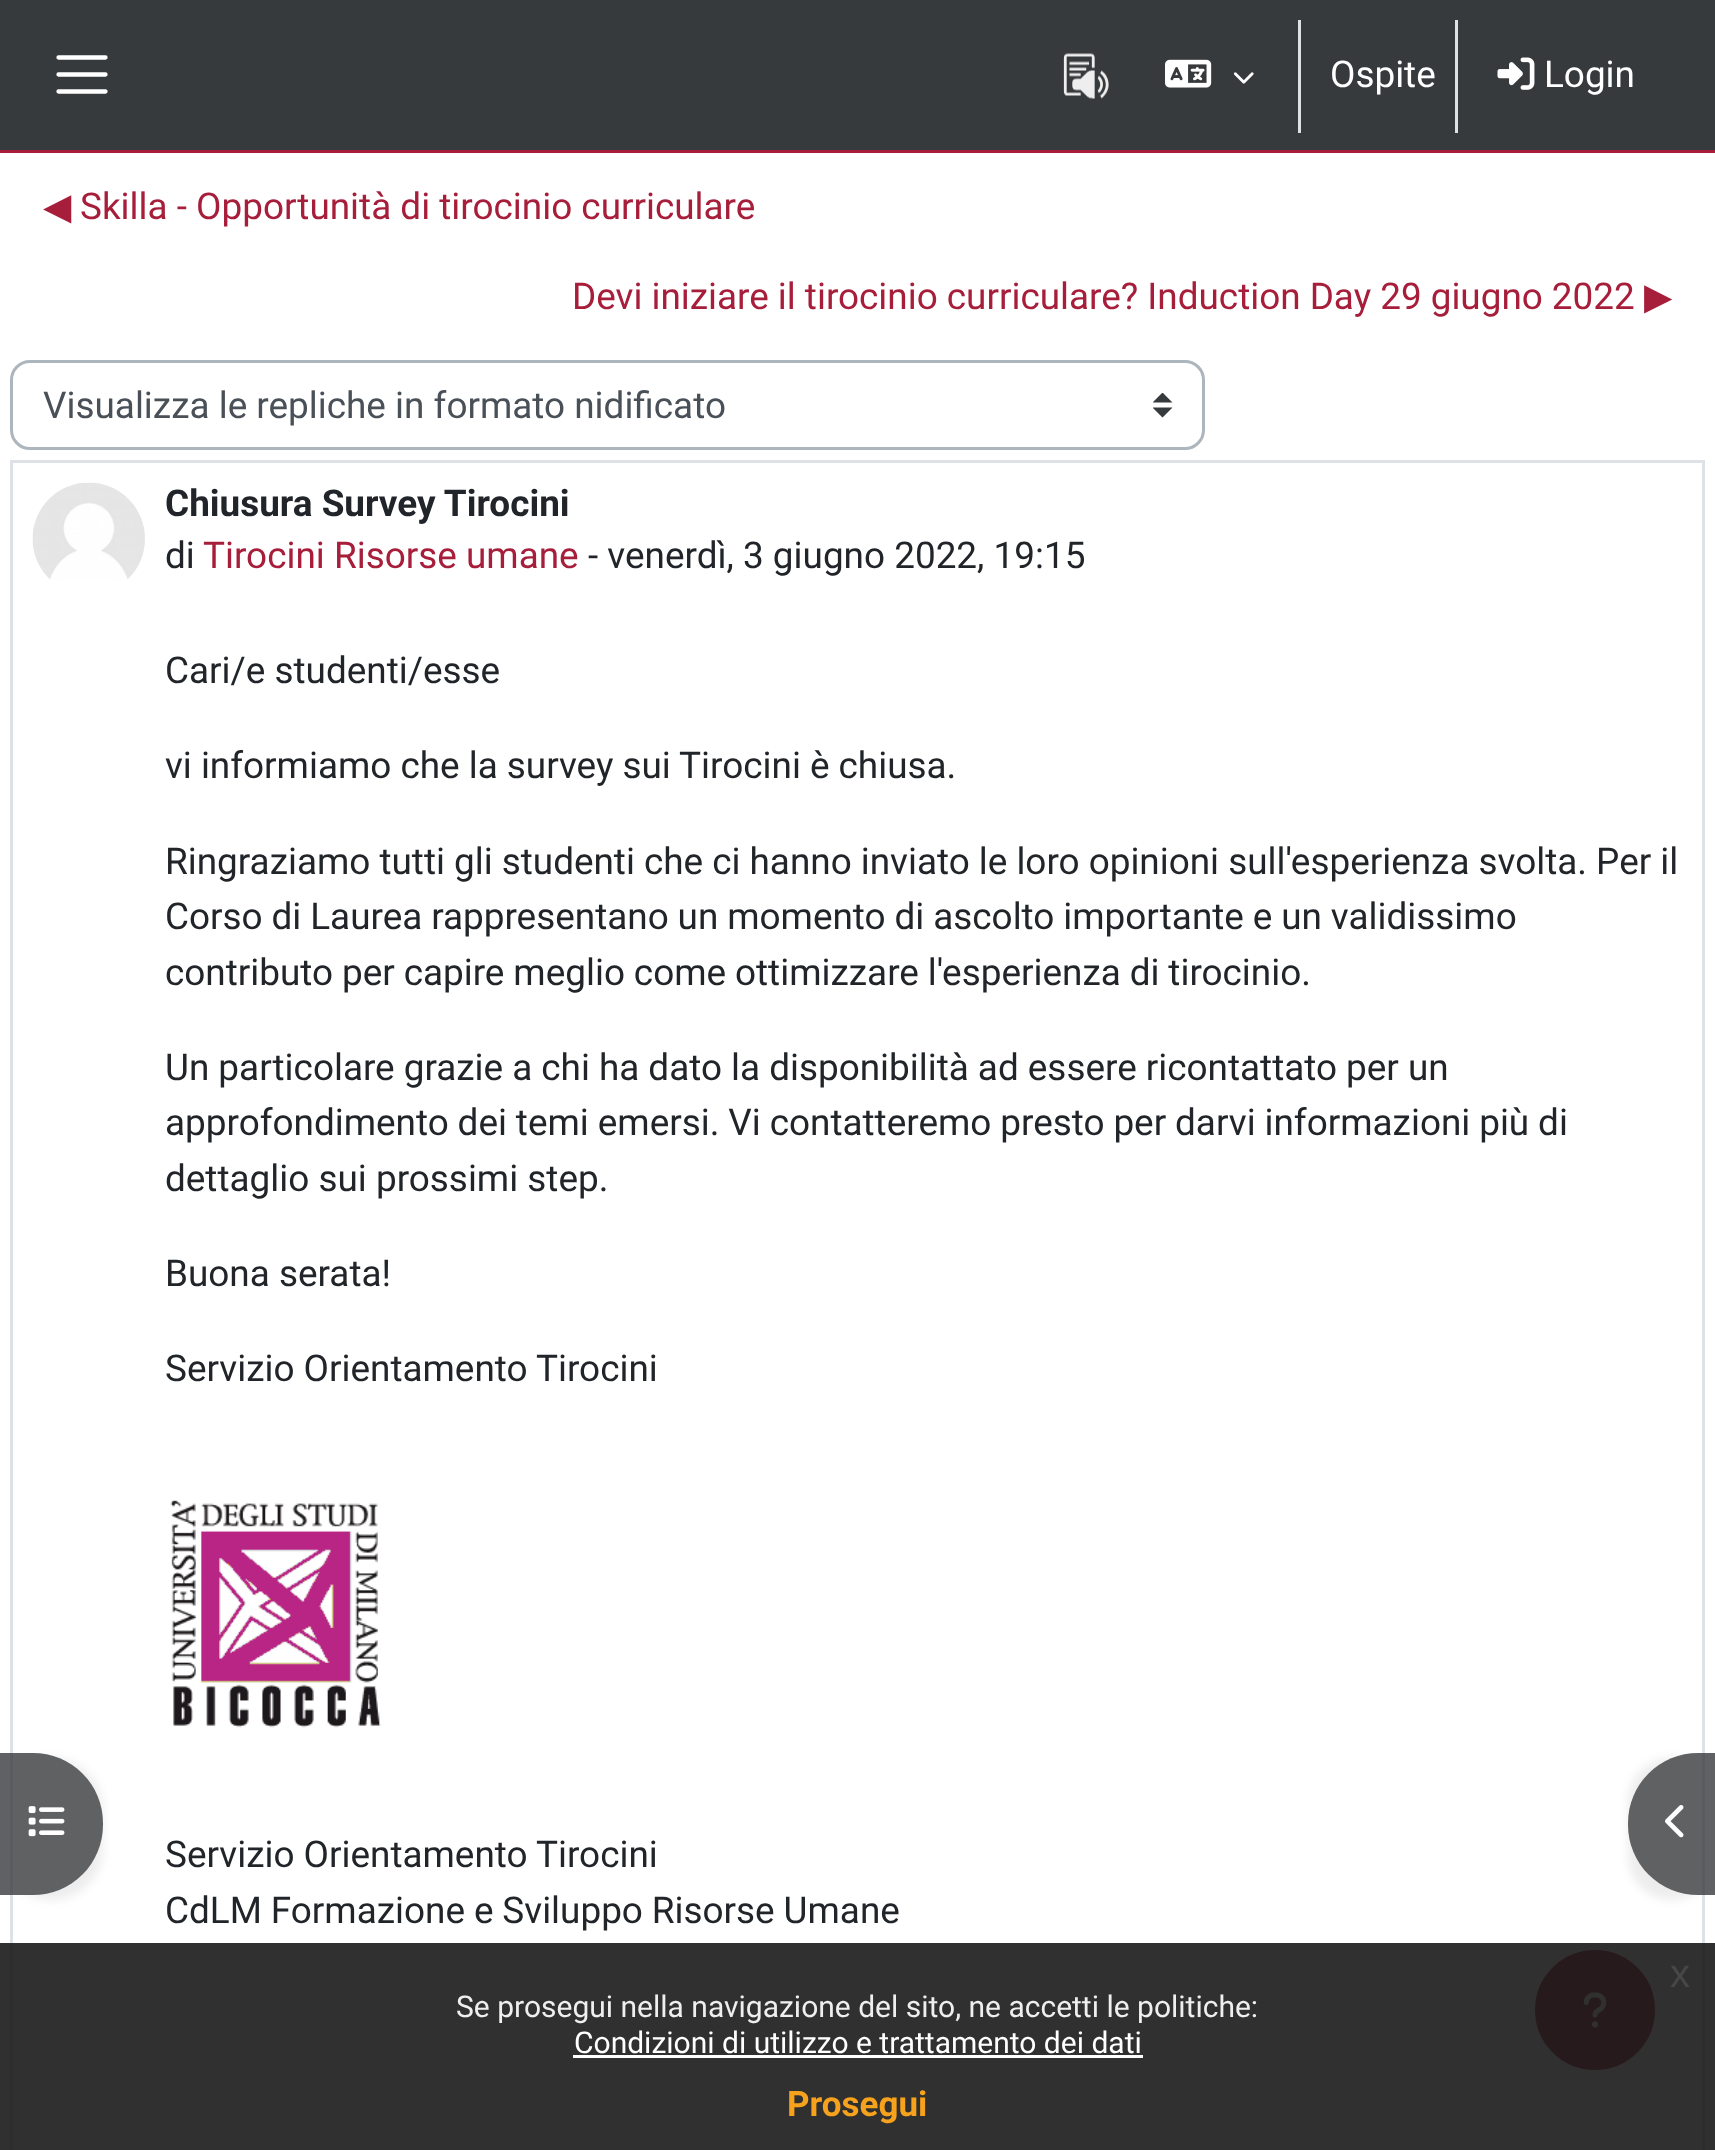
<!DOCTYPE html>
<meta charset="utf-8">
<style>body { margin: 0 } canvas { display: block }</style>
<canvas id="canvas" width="1715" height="2150"></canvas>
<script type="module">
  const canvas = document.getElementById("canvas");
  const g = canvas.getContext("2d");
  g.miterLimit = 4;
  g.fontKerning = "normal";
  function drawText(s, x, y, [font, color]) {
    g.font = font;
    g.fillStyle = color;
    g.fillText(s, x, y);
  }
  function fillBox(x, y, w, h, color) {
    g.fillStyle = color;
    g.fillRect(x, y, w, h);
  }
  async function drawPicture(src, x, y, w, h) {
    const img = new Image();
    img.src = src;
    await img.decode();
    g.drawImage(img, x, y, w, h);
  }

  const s1 = ["36.9px Roboto", "#FFFFFF"];
  const s2 = ["36.9px DejaVu Sans", "#A71E3B"];
  const s3 = ["36.9px Roboto", "#A71E3B"];
  const s4 = ["36.9px Roboto", "#495057"];
  const s5 = ["bold 36.9px Roboto", "#212529"];
  const s6 = ["36.9px Roboto", "#212529"];
  const s7 = ["40px Liberation Sans", "#474747"];
  const s8 = ["30px Roboto", "#EFEFEF"];
  const s9 = ["30px Roboto", "#FFFFFF"];
  const s10 = ["bold 35px Roboto", "#F6A21D"];

  fillBox(0, 0, 1715, 2150, "#FFFFFF");
  fillBox(0, 0, 1715, 150, "#373A3C");
  fillBox(0, 150, 1715, 3, "#A71E3B");
  g.beginPath();
  g.moveTo(58.5, 57.5);
  g.lineTo(105.5, 57.5);
  g.moveTo(58.5, 74.5);
  g.lineTo(105.5, 74.5);
  g.moveTo(58.5, 91.5);
  g.lineTo(105.5, 91.5);
  g.strokeStyle = "#FFFFFF";
  g.lineWidth = 4.3;
  g.lineCap = "round";
  g.stroke();
  await drawPicture("pic1.png", 1063, 53, 46, 46);
  await drawPicture("pic2.png", 1165, 59, 47, 29);
  await drawPicture("pic3.png", 1233, 72, 21, 12);
  fillBox(1298, 20, 3, 113, "#DEE2E6");
  drawText("Ospite", 1330, 87, s1);
  fillBox(1455, 20, 3, 113, "#DEE2E6");
  await drawPicture("pic4.png", 1497, 57, 38, 33);
  drawText("Login", 1544, 87, s1);
  drawText("◀︎", 43, 219, s2);
  drawText("Skilla - Opportunità di tirocinio curriculare", 80, 219, s3);
  g.wordSpacing = "-0.1px";
  drawText("Devi iniziare il tirocinio curriculare? Induction Day 29 giugno 2022", 572, 309, s3);
  g.wordSpacing = "0px";
  drawText("▶︎", 1644, 309, s2);
  g.save();
  g.beginPath();
  g.rect(1153, 393, 20, 25);
  g.clip();
  g.fillStyle = "#373A3C";
  g.beginPath();
  g.moveTo(1162.5, 392.5);
  g.lineTo(1152.5, 402.5);
  g.lineTo(1172.5, 402.5);
  g.closePath();
  g.moveTo(1162.5, 417.5);
  g.lineTo(1152.5, 407.5);
  g.lineTo(1172.5, 407.5);
  g.closePath();
  g.fill();
  g.restore();
  g.beginPath();
  g.roundRect(11.5, 361.5, 1192, 87, 18.5);
  g.strokeStyle = "#ADB5BD";
  g.lineWidth = 3;
  g.stroke();
  drawText("Visualizza le repliche in formato nidificato", 43, 418, s4);
  g.strokeStyle = "#DEE2E6";
  g.strokeRect(11.5, 461.5, 1692, 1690);
  await drawPicture("pic5.png", 32, 482, 113, 98);
  drawText("Chiusura Survey Tirocini", 165, 516, s5);
  drawText("di", 165, 568, s6);
  drawText("Tirocini Risorse umane", 203, 568, s3);
  drawText("- venerdì, 3 giugno 2022, 19:15", 588, 568, s6);
  drawText("Cari/e studenti/esse", 165, 683, s6);
  g.wordSpacing = "-0.1px";
  drawText("vi informiamo che la survey sui Tirocini è chiusa.", 165, 778, s6);
  drawText("Ringraziamo tutti gli studenti che ci hanno inviato le loro opinioni sull'esperienza svolta. Per il", 165, 874, s6);
  g.wordSpacing = "-0.25px";
  drawText("Corso di Laurea rappresentano un momento di ascolto importante e un validissimo", 165, 929, s6);
  drawText("contributo per capire meglio come ottimizzare l'esperienza di tirocinio.", 165, 985, s6);
  g.wordSpacing = "-0.1px";
  drawText("Un particolare grazie a chi ha dato la disponibilità ad essere ricontattato per un", 165, 1080, s6);
  g.wordSpacing = "-0.25px";
  drawText("approfondimento dei temi emersi. Vi contatteremo presto per darvi informazioni più di", 165, 1135, s6);
  g.wordSpacing = "0px";
  drawText("dettaglio sui prossimi step.", 165, 1191, s6);
  drawText("Buona serata!", 165, 1286, s6);
  drawText("Servizio Orientamento Tirocini", 165, 1381, s6);
  await drawPicture("pic6.png", 170, 1500, 211, 228);
  drawText("Servizio Orientamento Tirocini", 165, 1867, s6);
  g.wordSpacing = "-0.25px";
  drawText("CdLM Formazione e Sviluppo Risorse Umane", 165, 1923, s6);
  g.save();
  g.beginPath();
  g.moveTo(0, 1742);
  g.lineTo(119, 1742);
  g.lineTo(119, 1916);
  g.lineTo(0, 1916);
  g.closePath();
  g.moveTo(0, 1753);
  g.lineTo(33, 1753);
  g.bezierCurveTo(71.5, 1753, 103, 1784.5, 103, 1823);
  g.lineTo(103, 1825);
  g.bezierCurveTo(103, 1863.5, 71.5, 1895, 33, 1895);
  g.lineTo(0, 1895);
  g.closePath();
  g.clip("evenodd");
  g.fillStyle = "rgba(0, 0, 0, 0.07)";
  g.filter = "blur(5px)";
  g.beginPath();
  g.roundRect(0, 1758, 103, 142, 70);
  g.fill();
  g.filter = "none";
  g.restore();
  g.fillStyle = "rgba(55, 58, 60, 0.8)";
  g.beginPath();
  g.roundRect(0, 1753, 103, 142, [0, 70, 70, 0]);
  g.fill();
  await drawPicture("pic7.png", 28, 1806, 37, 31);
  g.save();
  g.beginPath();
  g.moveTo(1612, 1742);
  g.lineTo(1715, 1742);
  g.lineTo(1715, 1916);
  g.lineTo(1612, 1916);
  g.closePath();
  g.moveTo(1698, 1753);
  g.lineTo(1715, 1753);
  g.lineTo(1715, 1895);
  g.lineTo(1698, 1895);
  g.bezierCurveTo(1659.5, 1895, 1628, 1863.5, 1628, 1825);
  g.lineTo(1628, 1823);
  g.bezierCurveTo(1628, 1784.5, 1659.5, 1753, 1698, 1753);
  g.closePath();
  g.clip("evenodd");
  g.fillStyle = "rgba(0, 0, 0, 0.07)";
  g.filter = "blur(5px)";
  g.beginPath();
  g.roundRect(1628, 1758, 87, 142, 70);
  g.fill();
  g.filter = "none";
  g.restore();
  g.beginPath();
  g.roundRect(1628, 1753, 87, 142, [70, 0, 0, 70]);
  g.fill();
  await drawPicture("pic8.png", 1665, 1805, 19, 33);
  g.fillStyle = "#A71E3B";
  g.beginPath();
  g.arc(1595, 2010, 58.5, 0, Math.PI * 2);
  g.fill();
  g.strokeStyle = "#A71E3B";
  g.stroke();
  await drawPicture("pic9.png", 1583, 1992, 24, 36);
  fillBox(0, 1943, 1715, 207, "rgba(25, 25, 25, 0.9)");
  g.wordSpacing = "0px";
  drawText("x", 1670, 1987, s7);
  drawText("Se prosegui nella navigazione del sito, ne accetti le politiche:", 456, 2017, s8);
  drawText("Condizioni di utilizzo e trattamento dei dati", 574, 2053, s9);
  fillBox(573, 2055, 570, 3, "#FFFFFF");
  drawText("Prosegui", 787, 2116, s10);
</script>
